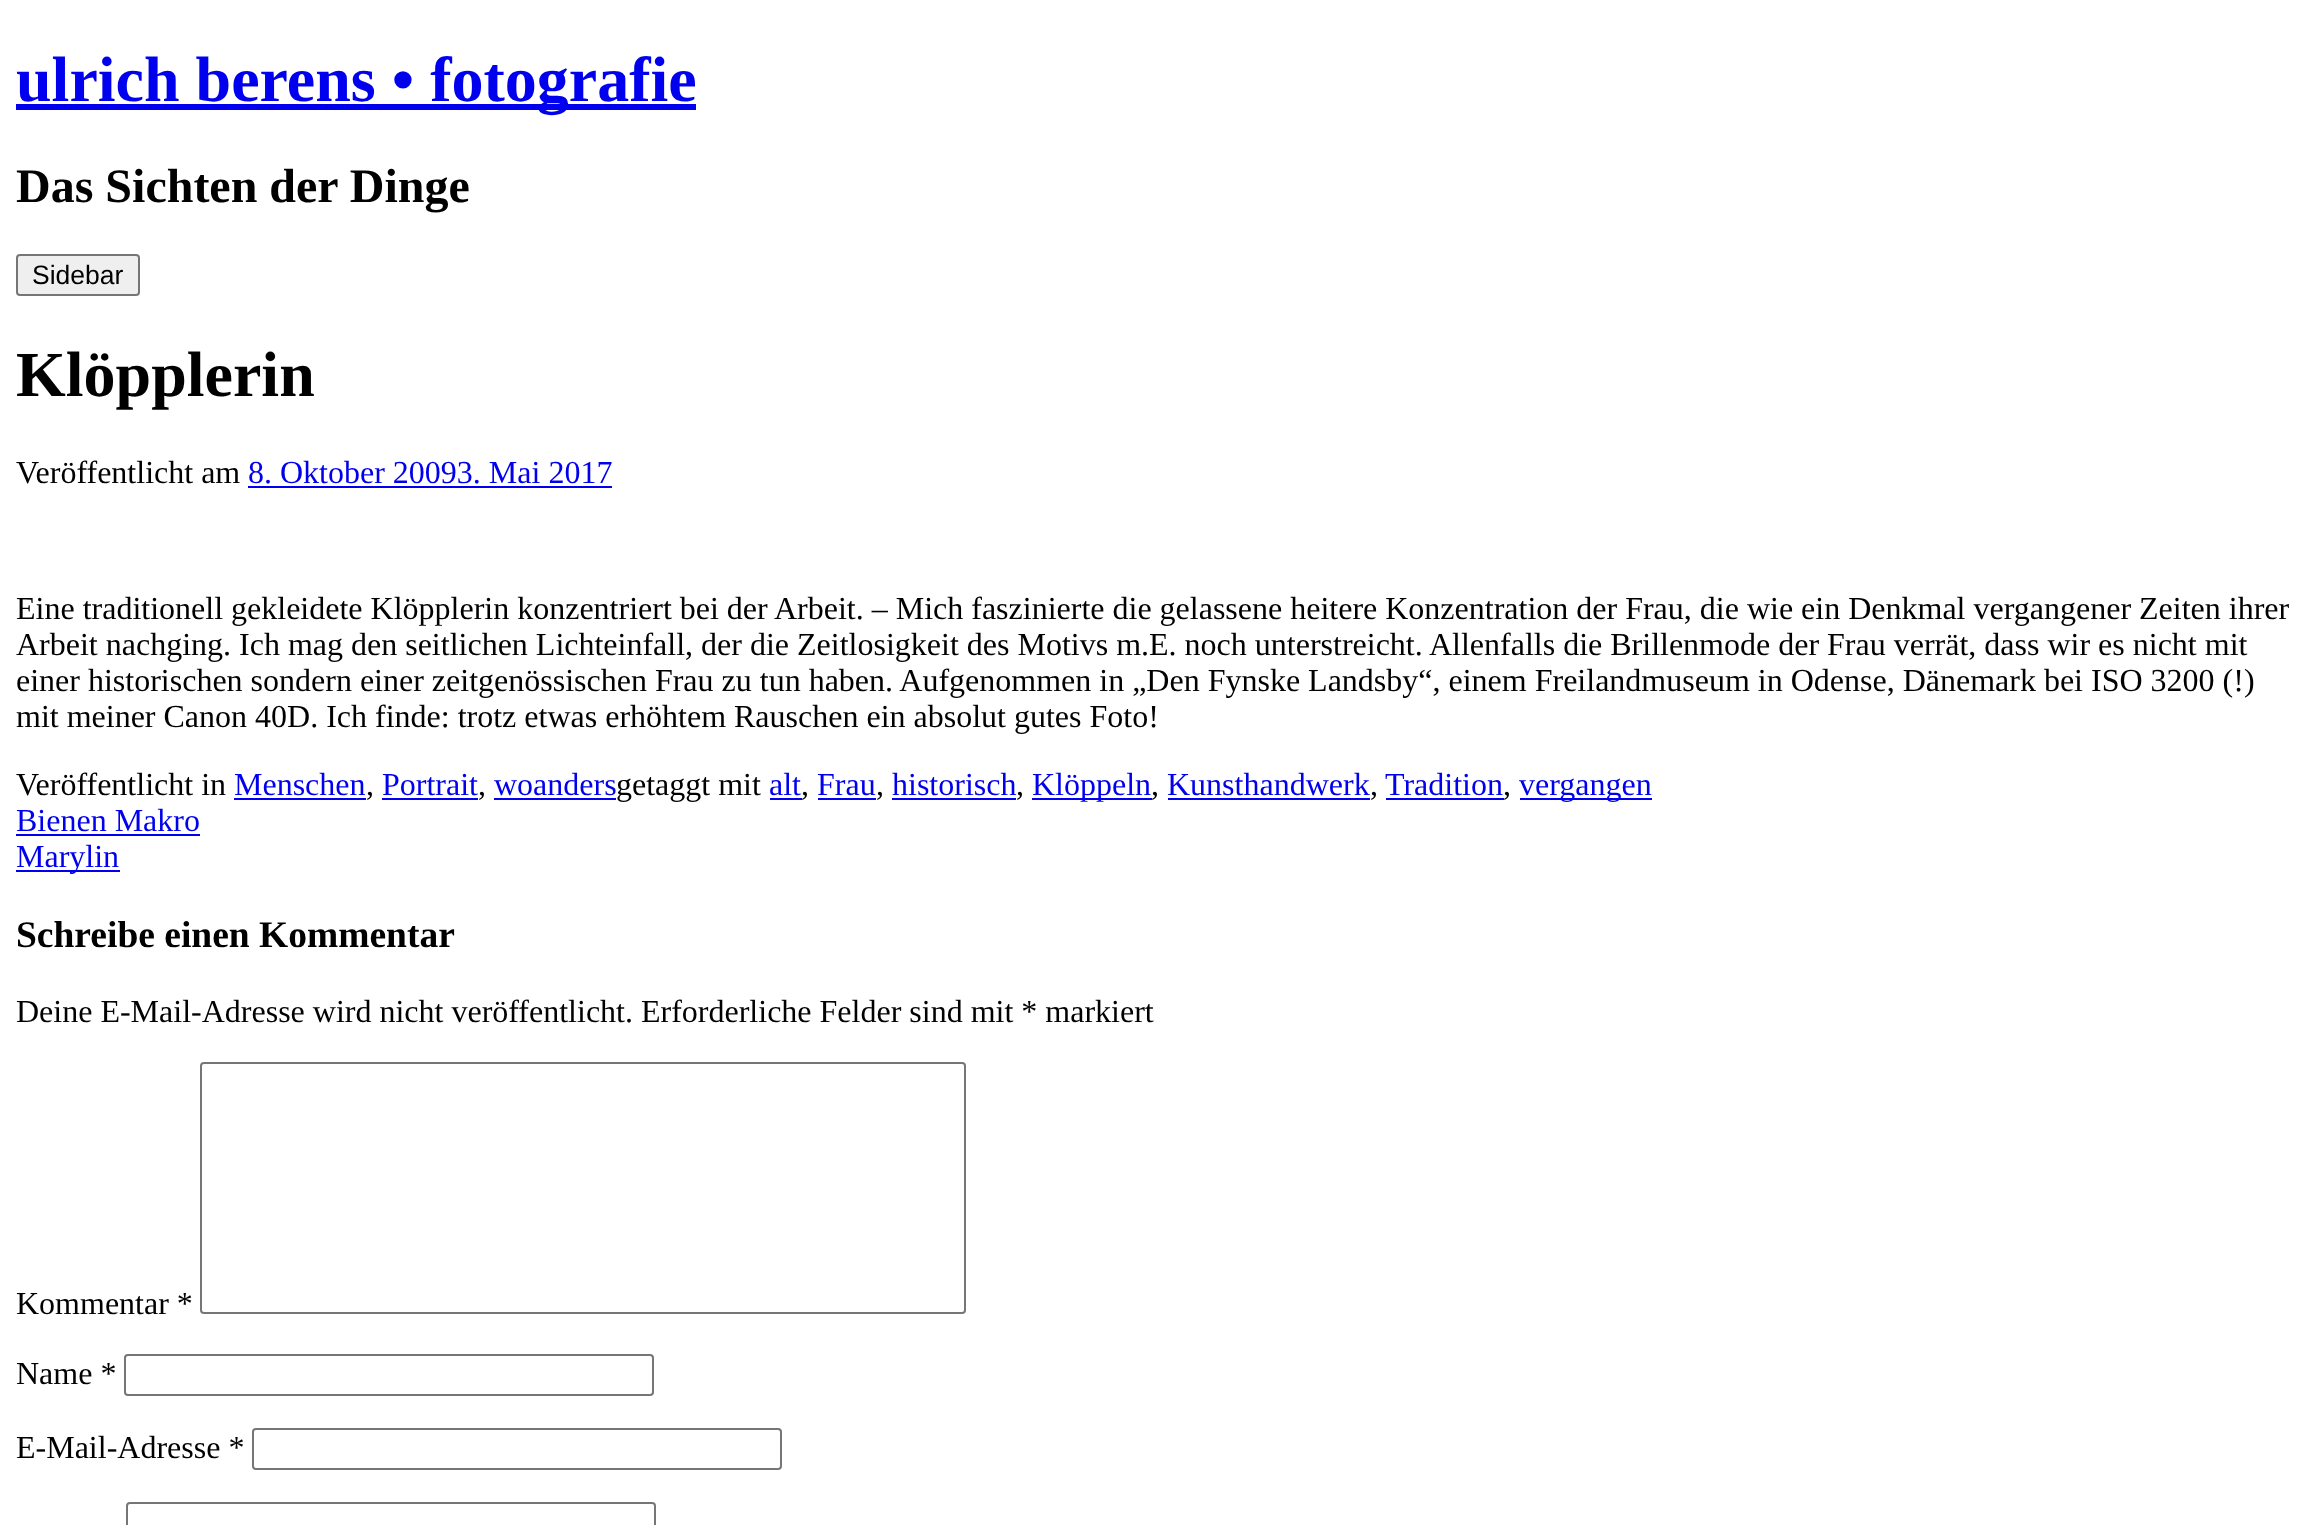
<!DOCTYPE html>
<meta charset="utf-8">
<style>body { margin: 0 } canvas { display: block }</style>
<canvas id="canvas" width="2311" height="1525"></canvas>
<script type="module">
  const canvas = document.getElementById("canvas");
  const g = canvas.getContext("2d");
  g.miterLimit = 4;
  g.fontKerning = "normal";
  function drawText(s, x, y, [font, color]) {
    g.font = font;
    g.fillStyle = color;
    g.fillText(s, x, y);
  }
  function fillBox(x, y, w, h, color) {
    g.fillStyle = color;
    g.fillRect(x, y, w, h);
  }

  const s1 = ["bold 64px Liberation Serif", "#0000EE"];
  const s2 = ["bold 48px Liberation Serif", "#000000"];
  const s3 = ["26.5px Liberation Sans", "#000000"];
  const s4 = ["bold 64px Liberation Serif", "#000000"];
  const s5 = ["32px Liberation Serif", "#000000"];
  const s6 = ["32px Liberation Serif", "#0000EE"];
  const s7 = ["bold 37.5px Liberation Serif", "#000000"];

  fillBox(0, 0, 2311, 1525, "#FFFFFF");
  fillBox(16, 104, 680, 6, "#0000EE");
  drawText("ulrich berens • fotografie", 16, 101, s1);
  drawText("Das Sichten der Dinge", 16, 202, s2);
  g.fillStyle = "#EFEFEF";
  g.beginPath();
  g.roundRect(17, 255, 122, 40, 3);
  g.fill();
  g.strokeStyle = "#767676";
  g.lineWidth = 2;
  g.stroke();
  drawText("Sidebar", 32, 284, s3);
  drawText("Klöpplerin", 16, 396, s4);
  drawText("Veröffentlicht am", 16, 483, s5);
  drawText("8. Oktober 20093. Mai 2017", 248, 483, s6);
  fillBox(248, 486, 364, 2, "#0000EE");
  drawText("Eine traditionell gekleidete Klöpplerin konzentriert bei der Arbeit. – Mich faszinierte die gelassene heitere Konzentration der Frau, die wie ein Denkmal vergangener Zeiten ihrer", 16, 619, s5);
  drawText("Arbeit nachging. Ich mag den seitlichen Lichteinfall, der die Zeitlosigkeit des Motivs m.E. noch unterstreicht. Allenfalls die Brillenmode der Frau verrät, dass wir es nicht mit", 16, 655, s5);
  drawText("einer historischen sondern einer zeitgenössischen Frau zu tun haben. Aufgenommen in „Den Fynske Landsby“, einem Freilandmuseum in Odense, Dänemark bei ISO 3200 (!)", 16, 691, s5);
  drawText("mit meiner Canon 40D. Ich finde: trotz etwas erhöhtem Rauschen ein absolut gutes Foto!", 16, 727, s5);
  drawText("Veröffentlicht in", 16, 795, s5);
  drawText("Menschen", 234, 795, s6);
  drawText(",", 366, 795, s5);
  fillBox(234, 798, 132, 2, "#0000EE");
  drawText("Portrait", 382, 795, s6);
  drawText(",", 478, 795, s5);
  fillBox(382, 798, 96, 2, "#0000EE");
  fillBox(494, 798, 122, 2, "#0000EE");
  drawText("woanders", 494, 795, s6);
  drawText("getaggt mit", 616, 795, s5);
  drawText("alt", 769, 795, s6);
  drawText(",", 801, 795, s5);
  fillBox(770, 798, 32, 2, "#0000EE");
  drawText("Frau", 817, 795, s6);
  drawText(",", 876, 795, s5);
  fillBox(818, 798, 58, 2, "#0000EE");
  drawText("historisch", 892, 795, s6);
  drawText(",", 1016, 795, s5);
  fillBox(892, 798, 124, 2, "#0000EE");
  fillBox(1032, 798, 120, 2, "#0000EE");
  drawText("Klöppeln", 1032, 795, s6);
  drawText(",", 1151, 795, s5);
  drawText("Kunsthandwerk", 1167, 795, s6);
  drawText(",", 1370, 795, s5);
  fillBox(1168, 798, 202, 2, "#0000EE");
  drawText("Tradition", 1385, 795, s6);
  drawText(",", 1503, 795, s5);
  fillBox(1386, 798, 118, 2, "#0000EE");
  fillBox(1520, 798, 132, 2, "#0000EE");
  drawText("vergangen", 1519, 795, s6);
  drawText("Bienen Makro", 16, 831, s6);
  fillBox(16, 834, 184, 2, "#0000EE");
  fillBox(16, 870, 104, 2, "#0000EE");
  drawText("Marylin", 16, 867, s6);
  drawText("Schreibe einen Kommentar", 16, 947, s7);
  drawText("Deine E-Mail-Adresse wird nicht veröffentlicht. Erforderliche Felder sind mit * markiert", 16, 1022, s5);
  drawText("Kommentar *", 16, 1314, s5);
  g.beginPath();
  g.roundRect(201, 1063, 764, 250, 3);
  g.stroke();
  drawText("Name *", 16, 1384, s5);
  g.beginPath();
  g.roundRect(125, 1355, 528, 40, 3);
  g.stroke();
  drawText("E-Mail-Adresse *", 16, 1458, s5);
  g.beginPath();
  g.roundRect(253, 1429, 528, 40, 3);
  g.stroke();
  g.beginPath();
  g.roundRect(127, 1503, 528, 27, 3);
  g.stroke();
</script>
